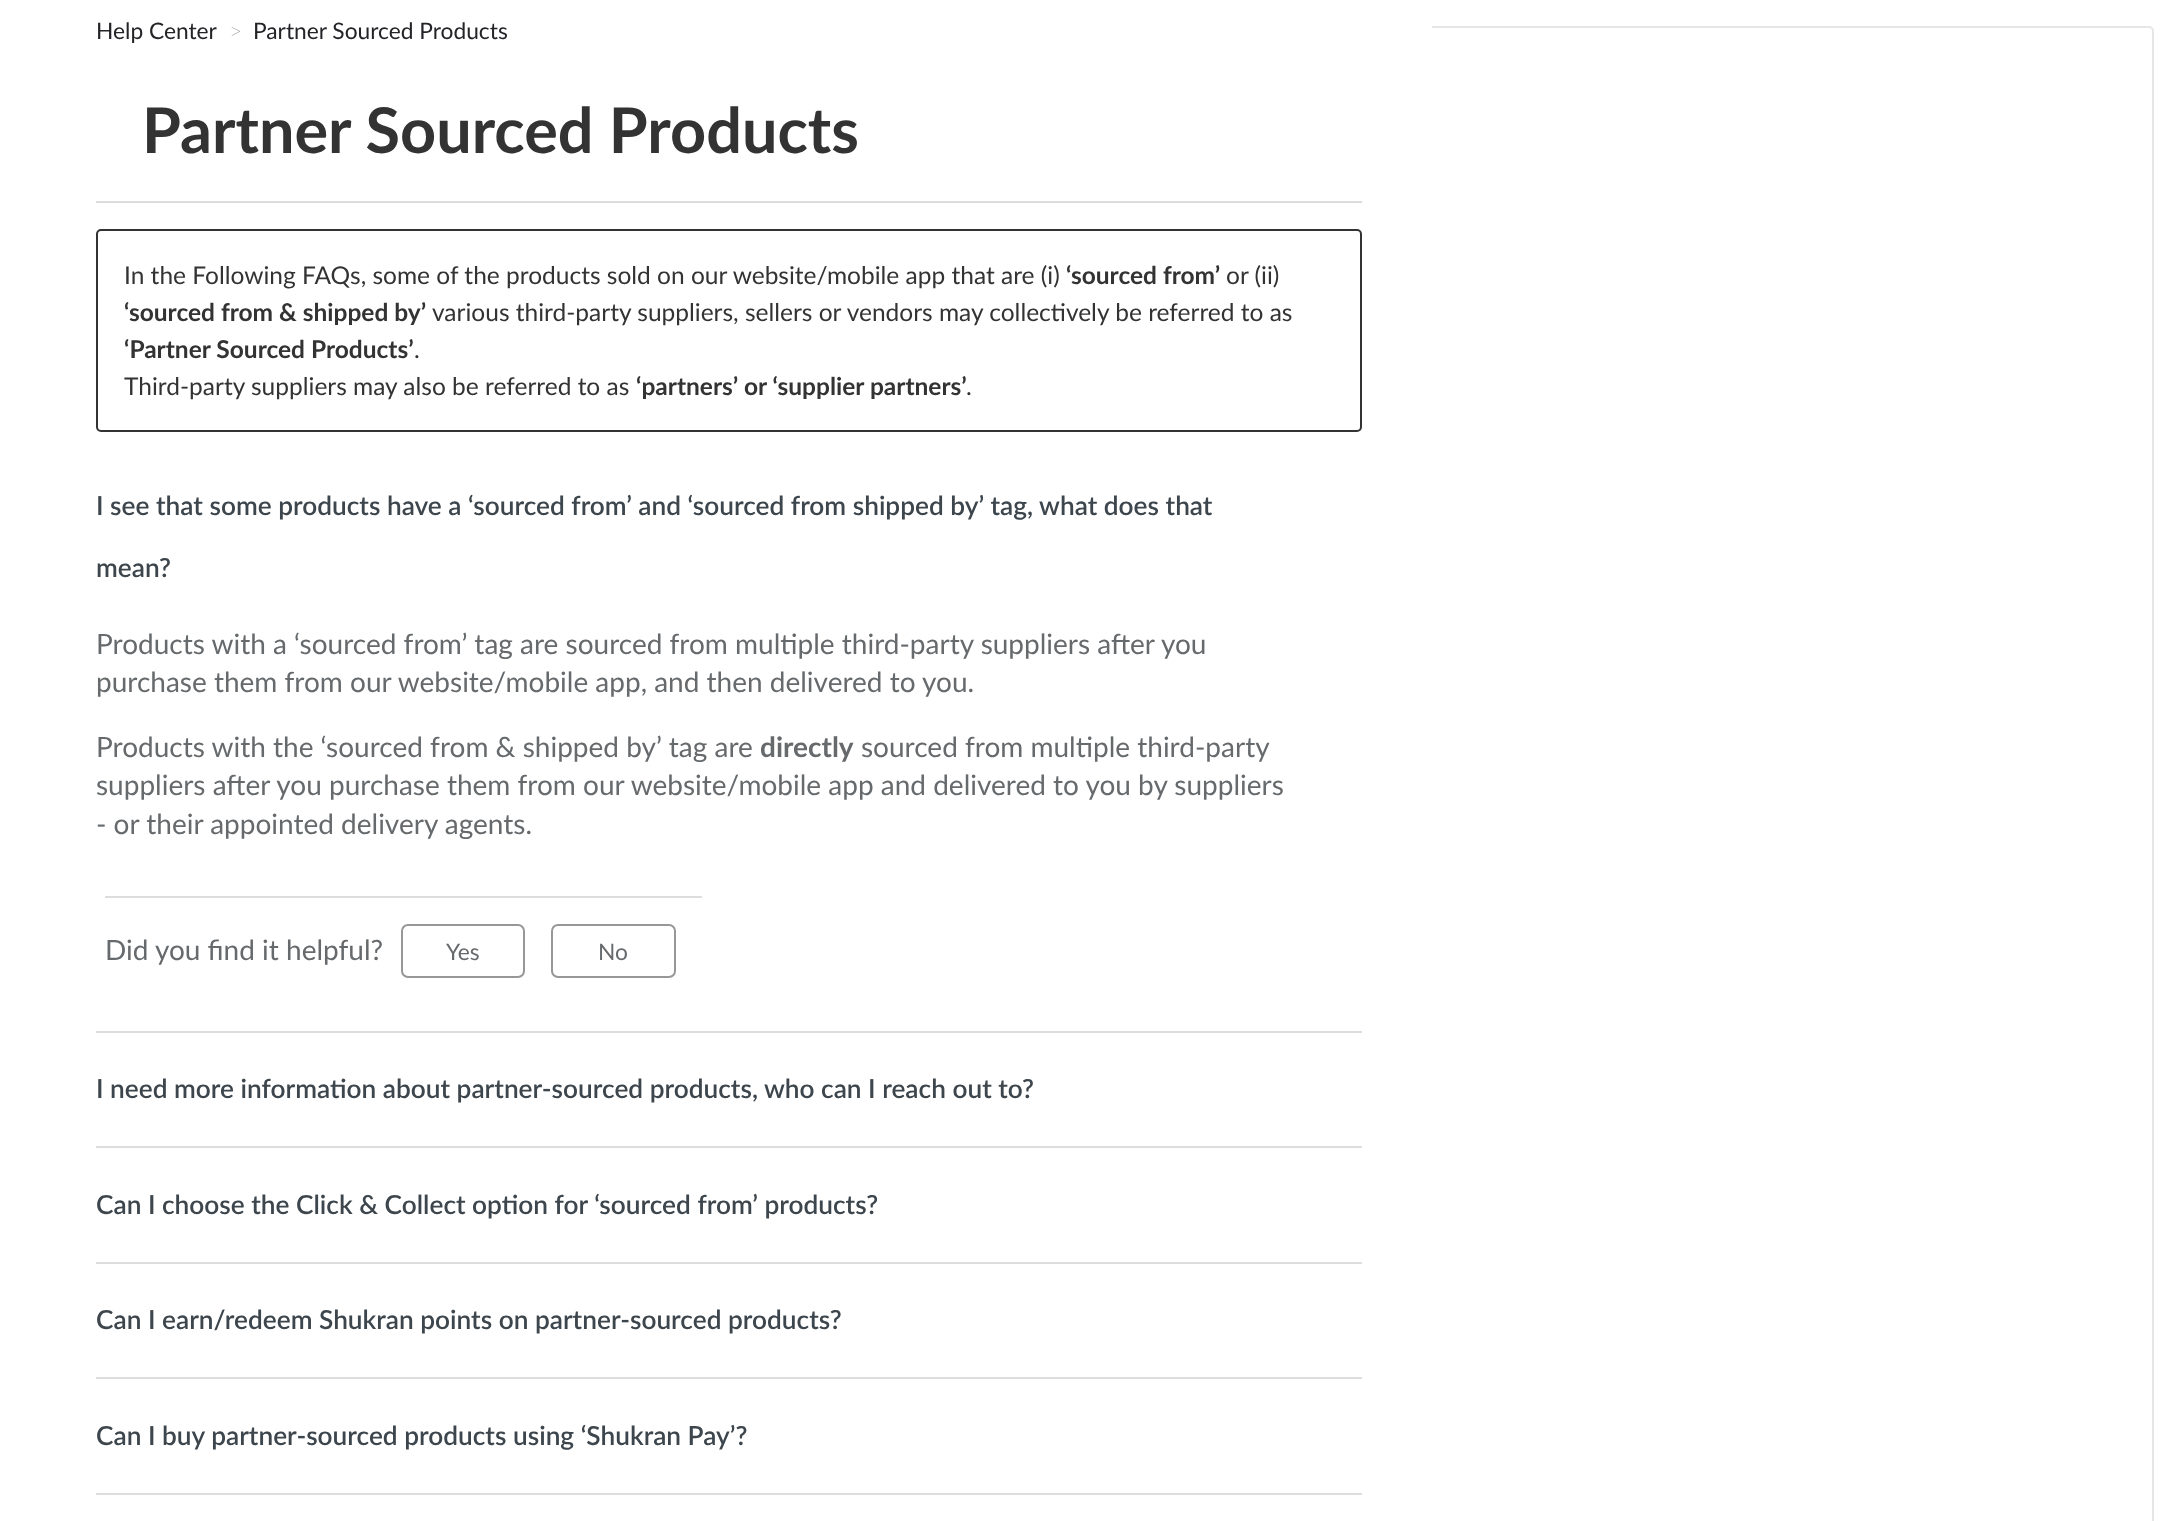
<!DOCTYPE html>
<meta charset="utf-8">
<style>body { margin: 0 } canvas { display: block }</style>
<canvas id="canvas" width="2180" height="1521"></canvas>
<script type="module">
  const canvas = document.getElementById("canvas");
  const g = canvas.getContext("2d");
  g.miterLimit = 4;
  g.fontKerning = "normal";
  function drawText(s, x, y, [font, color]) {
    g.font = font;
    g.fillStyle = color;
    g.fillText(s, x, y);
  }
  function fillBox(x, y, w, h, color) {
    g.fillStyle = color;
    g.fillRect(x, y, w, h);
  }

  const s1 = ["22.75px Lato", "#242428"];
  const s2 = ["200 22.75px Lato", "#666666"];
  const s3 = ["bold 63px Lato", "#333333"];
  const s4 = ["24.5px Lato", "#333333"];
  const s5 = ["bold 24.5px Lato", "#333333"];
  const s6 = ["600 26.25px Lato", "#3D464D"];
  const s7 = ["28px Lato", "#676A6C"];
  const s8 = ["bold 28px Lato", "#676A6C"];
  const s9 = ["22.75px Lato", "#676A6C"];

  fillBox(0, 0, 2180, 1521, "#FFFFFF");
  g.beginPath();
  g.roundRect(115, 27, 2038, 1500, 4);
  g.strokeStyle = "#E6E6E6";
  g.lineWidth = 2;
  g.stroke();
  g.beginPath();
  g.moveTo(37, 0);
  g.lineTo(1432, 0);
  g.lineTo(1432, 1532);
  g.lineTo(37, 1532);
  g.bezierCurveTo(31, 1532, 26, 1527, 26, 1521);
  g.lineTo(26, 11);
  g.bezierCurveTo(26, 5, 31, 0, 37, 0);
  g.closePath();
  g.fill();
  drawText("Help Center", 96, 39, s1);
  drawText(">", 229, 39, s2);
  drawText("Partner Sourced Products", 253, 39, s1);
  fillBox(96, 201, 1266, 2, "#DCDCDC");
  drawText("Partner Sourced Products", 142, 153, s3);
  g.beginPath();
  g.roundRect(97, 230, 1264, 201, 4);
  g.strokeStyle = "#333333";
  g.stroke();
  drawText("In the Following FAQs, some of the products sold on our website/mobile app that are (i)", 124, 284, s4);
  drawText("‘sourced from’", 1066, 284, s5);
  drawText("or (ii)", 1226, 284, s4);
  drawText("‘sourced from & shipped by’", 124, 321, s5);
  drawText("various third-party suppliers, sellers or vendors may collectively be referred to as", 432, 321, s4);
  drawText("‘Partner Sourced Products’", 124, 358, s5);
  drawText(".", 414, 358, s4);
  drawText("Third-party suppliers may also be referred to as", 124, 395, s4);
  drawText("‘partners’ or ‘supplier partners’", 636, 395, s5);
  drawText(".", 966, 395, s4);
  fillBox(96, 1031, 1266, 2, "#DDDDDD");
  drawText("I see that some products have a ‘sourced from’ and ‘sourced from shipped by’ tag, what does that", 96, 515, s6);
  drawText("mean?", 96, 577, s6);
  drawText("Products with a ‘sourced from’ tag are sourced from multiple third-party suppliers after you", 96, 654, s7);
  drawText("purchase them from our website/mobile app, and then delivered to you.", 96, 692, s7);
  drawText("Products with the ‘sourced from & shipped by’ tag are", 96, 757, s7);
  drawText("directly", 760, 757, s8);
  drawText("sourced from multiple third-party", 861, 757, s7);
  drawText("suppliers after you purchase them from our website/mobile app and delivered to you by suppliers", 96, 795, s7);
  drawText("- or their appointed delivery agents.", 96, 834, s7);
  fillBox(105, 896, 597, 2, "#DDDDDD");
  drawText("Did you find it helpful?", 105, 960, s7);
  g.beginPath();
  g.roundRect(402, 925, 122, 52, 6);
  g.strokeStyle = "#979797";
  g.stroke();
  drawText("Yes", 446, 960, s9);
  g.beginPath();
  g.roundRect(552, 925, 123, 52, 6);
  g.stroke();
  drawText("No", 598, 960, s9);
  fillBox(96, 1146, 1266, 2, "#DDDDDD");
  drawText("I need more information about partner-sourced products, who can I reach out to?", 96, 1098, s6);
  fillBox(96, 1262, 1266, 2, "#DDDDDD");
  drawText("Can I choose the Click & Collect option for ‘sourced from’ products?", 96, 1214, s6);
  fillBox(96, 1377, 1266, 2, "#DDDDDD");
  drawText("Can I earn/redeem Shukran points on partner-sourced products?", 96, 1329, s6);
  fillBox(96, 1493, 1266, 2, "#DDDDDD");
  drawText("Can I buy partner-sourced products using ‘Shukran Pay’?", 96, 1445, s6);
</script>
